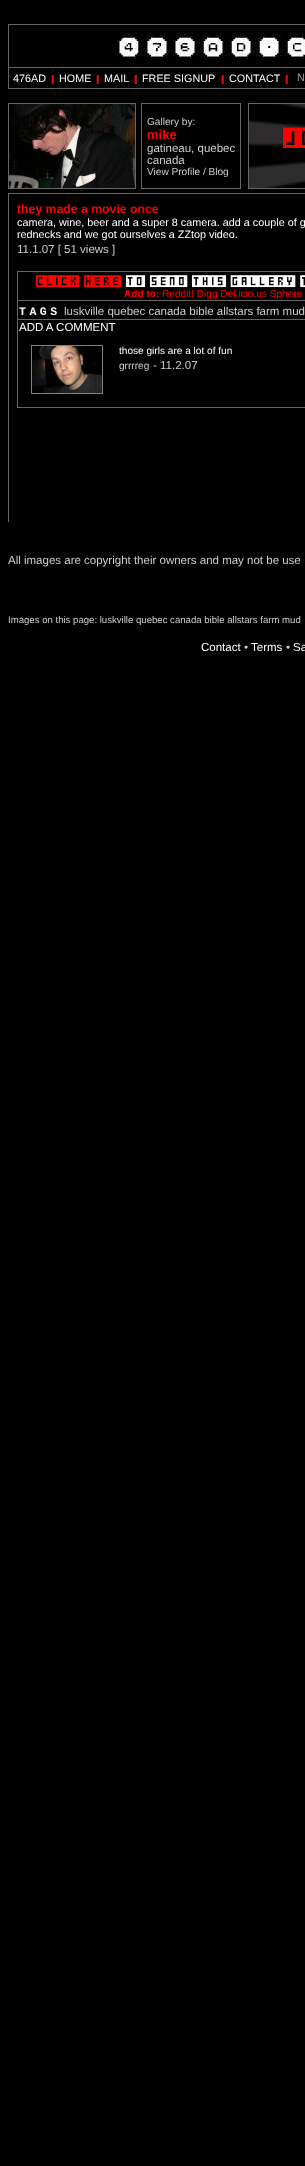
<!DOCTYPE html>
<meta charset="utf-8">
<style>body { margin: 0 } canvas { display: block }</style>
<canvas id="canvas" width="305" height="2166"></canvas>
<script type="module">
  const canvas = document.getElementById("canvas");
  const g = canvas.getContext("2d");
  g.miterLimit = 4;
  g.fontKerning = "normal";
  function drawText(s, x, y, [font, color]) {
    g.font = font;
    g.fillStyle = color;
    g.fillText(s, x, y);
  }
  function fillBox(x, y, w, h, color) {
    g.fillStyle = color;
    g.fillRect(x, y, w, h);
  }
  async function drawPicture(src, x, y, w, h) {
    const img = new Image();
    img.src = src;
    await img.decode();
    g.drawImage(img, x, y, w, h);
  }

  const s1 = ["10.8px Liberation Sans", "#FFFFFF"];
  const s2 = ["10.8px Liberation Sans", "#999999"];
  const s3 = ["10.1px Liberation Sans", "#CCCCCC"];
  const s4 = ["bold 13px Liberation Sans", "#FF0000"];
  const s5 = ["11.5px Liberation Sans", "#CCCCCC"];
  const s6 = ["bold 12.25px Liberation Sans", "#FF0000"];
  const s7 = ["bold 10.1px Liberation Sans", "#FF0000"];
  const s8 = ["10.1px Liberation Sans", "#FF0000"];
  const s9 = ["bold 11.5px Liberation Mono", "#FFFFFF"];
  const s10 = ["11.5px Liberation Sans", "#FFFFFF"];
  const s11 = ["10.1px Liberation Sans", "#FFFFFF"];
  const s12 = ["9.6px Liberation Sans", "#CCCCCC"];

  fillBox(0, 0, 305, 2166, "#000000");
  fillBox(8, 24, 297, 1, "#666666");
  fillBox(8, 88, 297, 1, "#666666");
  fillBox(8, 24, 1, 65, "#666666");
  await drawPicture("pic1.png", 113, 33, 192, 24);
  fillBox(8, 67, 297, 1, "#666666");
  drawText("476AD", 13, 82, s1);
  await drawPicture("pic2.png", 51, 75, 3, 9);
  drawText("HOME", 59, 82, s1);
  await drawPicture("pic2.png", 96, 75, 3, 9);
  drawText("MAIL", 104, 82, s1);
  await drawPicture("pic2.png", 134, 75, 3, 9);
  drawText("FREE SIGNUP", 142, 82, s1);
  await drawPicture("pic2.png", 221, 75, 3, 9);
  drawText("CONTACT", 229, 82, s1);
  await drawPicture("pic2.png", 285, 75, 3, 9);
  drawText("N", 297, 81, s2);
  g.strokeStyle = "#666666";
  g.strokeRect(8.5, 103.5, 127, 85);
  await drawPicture("pic3.png", 9, 104, 126, 84);
  g.strokeRect(141.5, 103.5, 99, 85);
  drawText("Gallery by:", 147, 125, s3);
  drawText("mike", 147, 139, s4);
  drawText("gatineau, quebec", 147, 152, s5);
  drawText("canada", 147, 164, s5);
  drawText("View Profile / Blog", 147, 175, s3);
  await drawPicture("pic4.png", 248, 103, 57, 86);
  fillBox(8, 193, 297, 1, "#666666");
  fillBox(8, 193, 1, 329, "#666666");
  drawText("they made a movie once", 17, 213, s6);
  drawText("camera, wine, beer and a super 8 camera. add a couple of g", 17, 226, s1);
  drawText("rednecks and we got ourselves a ZZtop video.", 17, 238, s1);
  drawText("11.1.07 [ 51 views ]", 17, 253, s5);
  fillBox(17, 271, 288, 1, "#666666");
  fillBox(17, 407, 288, 1, "#666666");
  fillBox(17, 271, 1, 137, "#666666");
  await drawPicture("pic5.png", 35, 275, 270, 13);
  drawText("Add to:", 124, 297, s7);
  drawText("Reddit! Digg Del.icio.us Sphere", 162, 297, s8);
  fillBox(17, 300, 288, 1, "#666666");
  g.letterSpacing = "3.5px";
  drawText("TAGS", 19, 315, s9);
  g.letterSpacing = "0px";
  drawText("luskville quebec canada bible allstars farm mud", 64, 315, s5);
  fillBox(17, 319, 288, 1, "#666666");
  drawText("ADD A COMMENT", 19, 331, s10);
  g.strokeStyle = "#808080";
  g.strokeRect(31.5, 345.5, 71, 48);
  await drawPicture("pic6.png", 32, 346, 70, 47);
  drawText("those girls are a lot of fun", 119, 354, s11);
  drawText("grrrreg", 119, 369, s3);
  drawText("- 11.2.07", 153, 369, s5);
  drawText("All images are copyright their owners and may not be use", 8, 564, s5);
  drawText("Images on this page: luskville quebec canada bible allstars farm mud", 8, 623, s12);
  drawText("Contact", 201, 651, s10);
  drawText("•", 244, 651, s5);
  drawText("Terms", 251, 651, s10);
  drawText("•", 286, 651, s5);
  drawText("Sa", 293, 651, s10);
</script>
